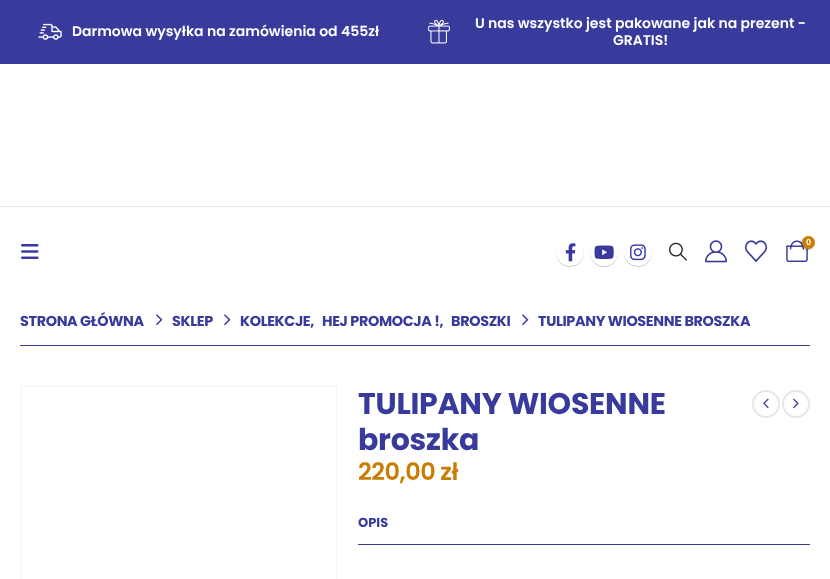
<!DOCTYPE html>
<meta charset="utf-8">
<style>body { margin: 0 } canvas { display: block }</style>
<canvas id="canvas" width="830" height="579"></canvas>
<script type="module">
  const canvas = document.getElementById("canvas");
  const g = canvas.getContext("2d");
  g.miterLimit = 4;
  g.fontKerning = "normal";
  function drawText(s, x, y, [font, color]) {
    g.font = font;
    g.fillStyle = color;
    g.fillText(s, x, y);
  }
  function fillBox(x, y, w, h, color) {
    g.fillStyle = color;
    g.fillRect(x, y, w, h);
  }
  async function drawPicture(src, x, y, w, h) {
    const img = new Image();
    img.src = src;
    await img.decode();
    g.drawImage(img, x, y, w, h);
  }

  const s1 = ["600 14px Poppins", "#FFFFFF"];
  const s2 = ["600 8px Poppins", "#FFFFFF"];
  const s3 = ["bold 14.4px Poppins", "#383A9C"];
  const s4 = ["bold 30px Poppins", "#383A9C"];
  const s5 = ["600 24px Poppins", "#C97D03"];
  const s6 = ["bold 13px Poppins", "#383A9C"];

  fillBox(0, 0, 830, 579, "#FFFFFF");
  fillBox(0, 0, 830, 64, "#383A9C");
  await drawPicture("pic1.png", 38, 23, 24, 17);
  drawText("Darmowa wysyłka na zamówienia od 455zł", 72, 36, s1);
  await drawPicture("pic2.png", 428, 19, 22, 25);
  drawText("U nas wszystko jest pakowane jak na prezent -", 475, 28, s1);
  drawText("GRATIS!", 613, 45, s1);
  fillBox(0, 206, 830, 1, "#E7E7E7");
  g.fillStyle = "rgba(0, 0, 0, 0.2)";
  g.filter = "blur(0.5px)";
  g.beginPath();
  g.roundRect(556, 239, 28, 28, 14);
  g.fill();
  g.filter = "none";
  g.fillStyle = "#FFFFFF";
  g.beginPath();
  g.arc(570, 252, 14, 0, Math.PI * 2);
  g.fill();
  await drawPicture("pic3.png", 565, 243, 11, 19);
  g.fillStyle = "rgba(0, 0, 0, 0.2)";
  g.filter = "blur(0.5px)";
  g.beginPath();
  g.roundRect(590, 239, 28, 28, 14);
  g.fill();
  g.filter = "none";
  g.fillStyle = "#FFFFFF";
  g.beginPath();
  g.arc(604, 252, 14, 0, Math.PI * 2);
  g.fill();
  await drawPicture("pic4.png", 594, 245, 20, 14);
  g.fillStyle = "rgba(0, 0, 0, 0.2)";
  g.filter = "blur(0.5px)";
  g.beginPath();
  g.roundRect(624, 239, 28, 28, 14);
  g.fill();
  g.filter = "none";
  g.fillStyle = "#FFFFFF";
  g.beginPath();
  g.arc(638, 252, 14, 0, Math.PI * 2);
  g.fill();
  await drawPicture("pic5.png", 630, 244, 16, 17);
  await drawPicture("pic6.png", 669, 242, 18, 19);
  await drawPicture("pic7.png", 705, 240, 22, 23);
  await drawPicture("pic8.png", 745, 240, 22, 23);
  await drawPicture("pic9.png", 786, 240, 22, 23);
  g.fillStyle = "rgba(0, 0, 0, 0.3)";
  g.filter = "blur(1px)";
  g.beginPath();
  g.roundRect(801, 237, 13, 13, 6.5);
  g.fill();
  g.filter = "none";
  g.fillStyle = "#C97D03";
  g.beginPath();
  g.arc(808.5, 242.5, 6.5, 0, Math.PI * 2);
  g.fill();
  drawText("0", 806, 245, s2);
  await drawPicture("pic10.png", 21, 244, 18, 15);
  g.letterSpacing = "-0.35px";
  drawText("STRONA GŁÓWNA", 20, 326, s3);
  await drawPicture("pic11.png", 156, 314, 7, 11);
  drawText("SKLEP", 172, 326, s3);
  await drawPicture("pic11.png", 224, 314, 7, 11);
  drawText("KOLEKCJE,", 240, 326, s3);
  drawText("HEJ PROMOCJA !,", 322, 326, s3);
  drawText("BROSZKI", 451, 326, s3);
  await drawPicture("pic11.png", 522, 314, 7, 11);
  drawText("TULIPANY WIOSENNE BROSZKA", 538, 326, s3);
  fillBox(20, 345, 790, 1, "#383A9C");
  g.strokeStyle = "#F4F4F4";
  g.strokeRect(21.5, 386.5, 315, 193);
  g.letterSpacing = "-0.25px";
  drawText("TULIPANY WIOSENNE", 358, 414, s4);
  drawText("broszka", 358, 450, s4);
  g.beginPath();
  g.arc(766, 404, 13, 0, Math.PI * 2);
  g.strokeStyle = "#E7E7E7";
  g.lineWidth = 2;
  g.stroke();
  await drawPicture("pic12.png", 763, 398, 6, 11);
  g.beginPath();
  g.arc(796, 404, 13, 0, Math.PI * 2);
  g.stroke();
  await drawPicture("pic13.png", 793, 398, 6, 11);
  g.letterSpacing = "-0.5px";
  drawText("220,00 zł", 358, 480, s5);
  g.letterSpacing = "0px";
  drawText("OPIS", 358, 527, s6);
  fillBox(358, 544, 452, 1, "#383A9C");
</script>
